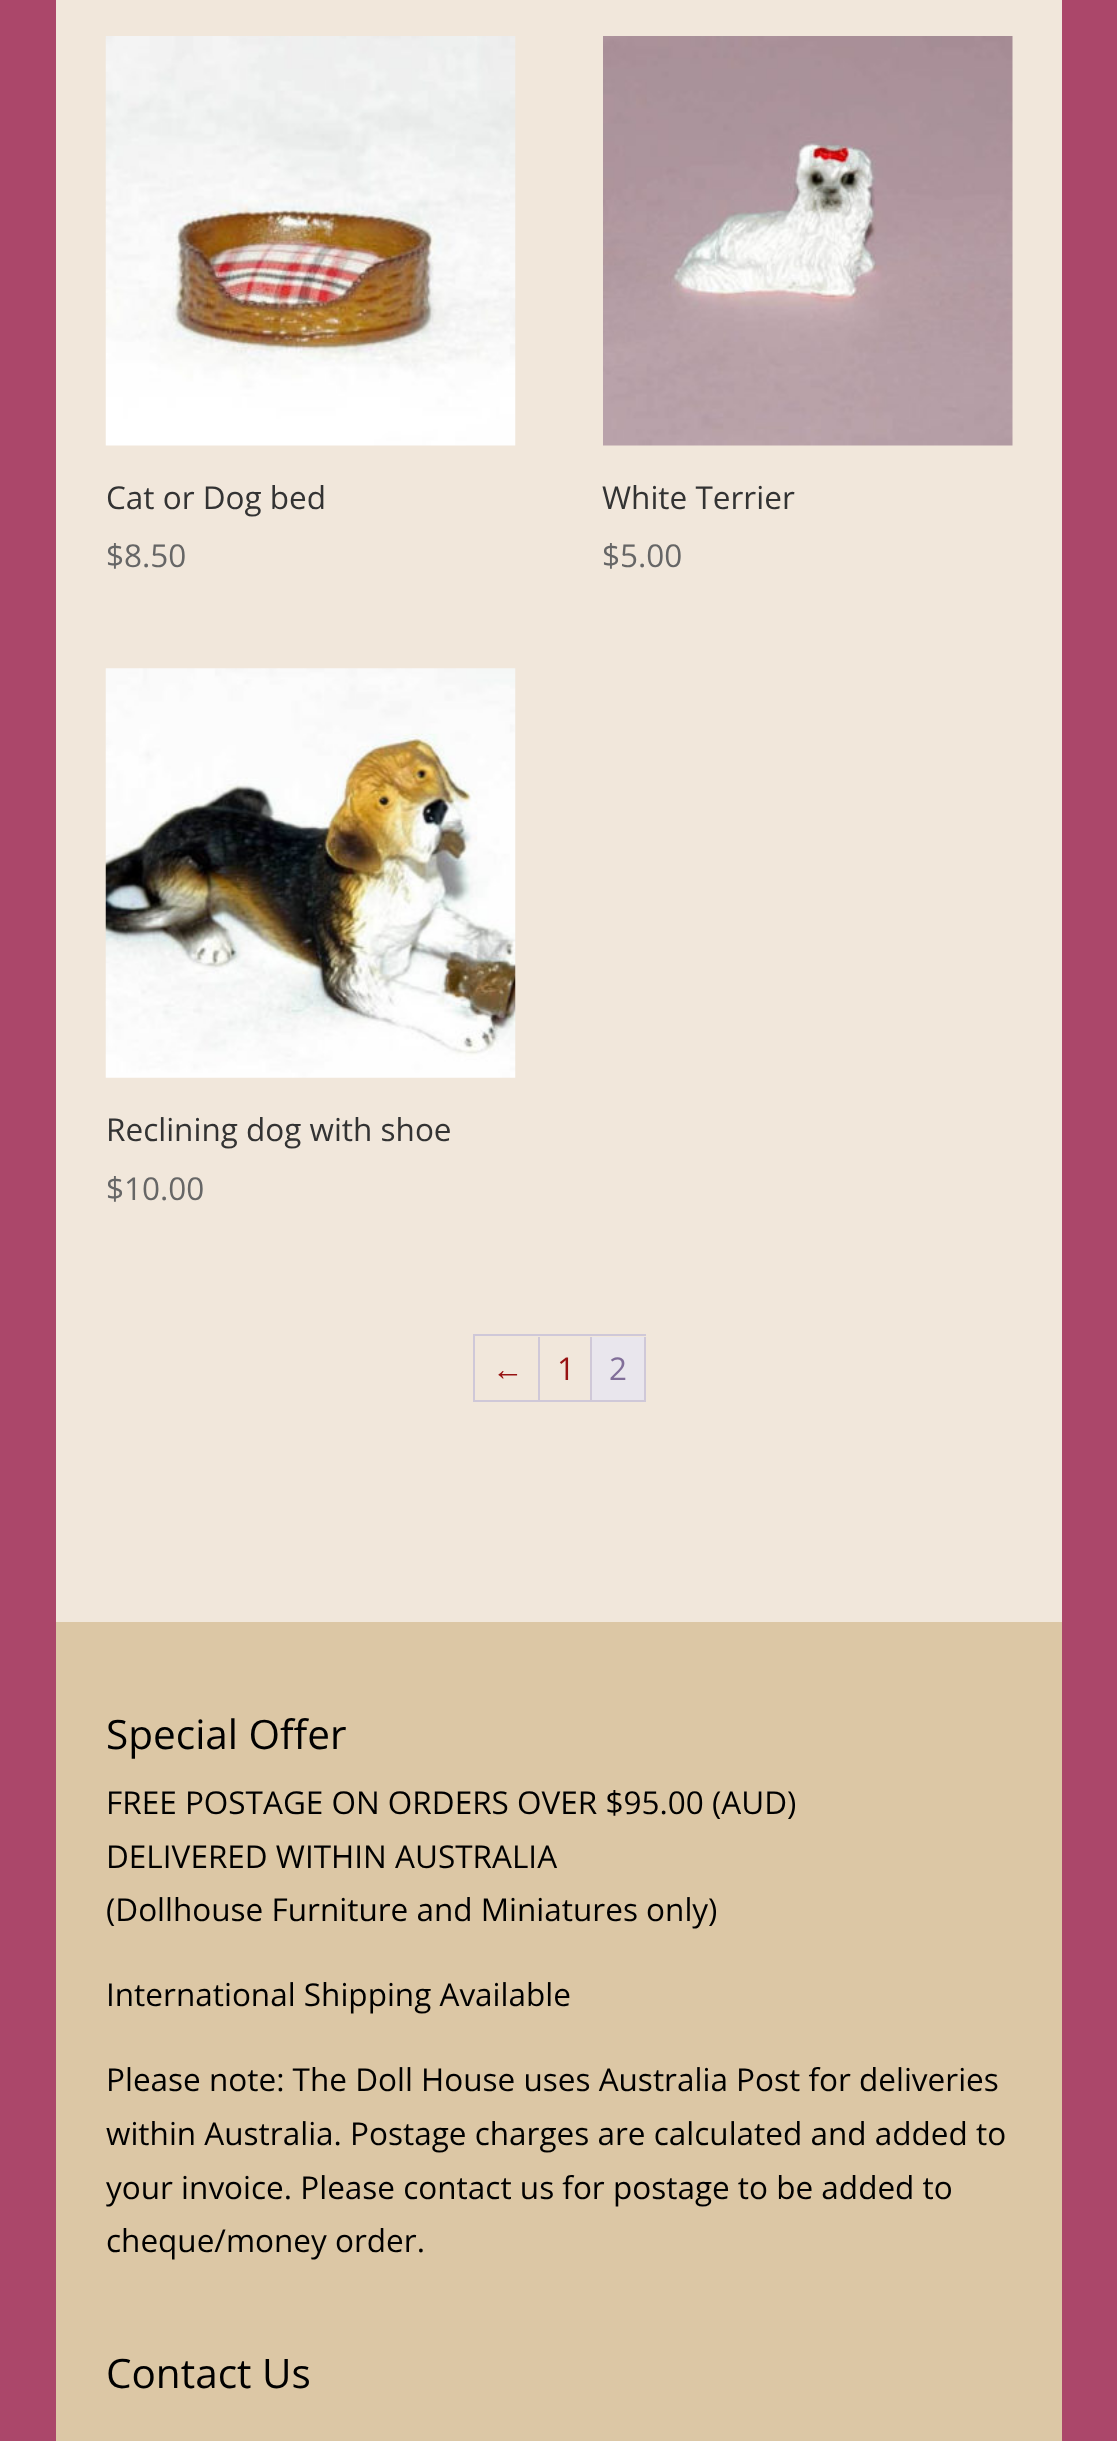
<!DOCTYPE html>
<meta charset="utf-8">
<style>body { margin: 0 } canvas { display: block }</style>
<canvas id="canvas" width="1117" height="2441"></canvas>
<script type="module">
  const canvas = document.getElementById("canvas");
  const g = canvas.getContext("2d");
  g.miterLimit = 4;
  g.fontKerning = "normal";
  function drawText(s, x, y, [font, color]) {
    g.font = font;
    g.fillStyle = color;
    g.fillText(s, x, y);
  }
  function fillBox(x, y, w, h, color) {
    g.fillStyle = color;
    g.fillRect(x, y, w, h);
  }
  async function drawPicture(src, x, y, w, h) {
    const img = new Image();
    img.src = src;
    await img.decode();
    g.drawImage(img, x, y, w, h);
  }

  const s1 = ["31.5px Open Sans", "#333333"];
  const s2 = ["31.5px Open Sans", "#666666"];
  const s3 = ["31.5px Liberation Sans", "#971212"];
  const s4 = ["31.5px Open Sans", "#971212"];
  const s5 = ["31.5px Open Sans", "#816E99"];
  const s6 = ["40.5px Open Sans", "#000000"];
  const s7 = ["31.5px Open Sans", "#000000"];

  fillBox(0, 0, 1117, 2441, "#AB476A");
  fillBox(56, 0, 1006, 1622, "#F1E7DB");
  await drawPicture("pic1.png", 105, 36, 411, 410);
  drawText("Cat or Dog bed", 106, 509, s1);
  drawText("$8.50", 106, 567, s2);
  await drawPicture("pic2.png", 603, 36, 410, 410);
  drawText("White Terrier", 602, 509, s1);
  drawText("$5.00", 602, 567, s2);
  await drawPicture("pic3.png", 105, 668, 411, 410);
  drawText("Reclining dog with shoe", 106, 1141, s1);
  drawText("$10.00", 106, 1200, s2);
  fillBox(473, 1334, 173, 2, "#CFC8D8");
  fillBox(473, 1400, 173, 2, "#CFC8D8");
  fillBox(473, 1334, 2, 68, "#CFC8D8");
  fillBox(538, 1337, 2, 63, "#CFC8D8");
  drawText("←", 492, 1380, s3);
  fillBox(590, 1337, 2, 63, "#CFC8D8");
  drawText("1", 557, 1380, s4);
  fillBox(644, 1337, 2, 63, "#CFC8D8");
  fillBox(592, 1337, 52, 63, "#E9E6ED");
  drawText("2", 609, 1380, s5);
  fillBox(56, 1622, 1006, 819, "#DCC7A5");
  drawText("Special Offer", 106, 1749, s6);
  drawText("FREE POSTAGE ON ORDERS OVER $95.00 (AUD)", 106, 1814, s7);
  drawText("DELIVERED WITHIN AUSTRALIA", 106, 1868, s7);
  drawText("(Dollhouse Furniture and Miniatures only)", 106, 1921, s7);
  drawText("International Shipping Available", 106, 2006, s7);
  drawText("Please note: The Doll House uses Australia Post for deliveries", 106, 2091, s7);
  drawText("within Australia. Postage charges are calculated and added to", 106, 2145, s7);
  drawText("your invoice. Please contact us for postage to be added to", 106, 2199, s7);
  drawText("cheque/money order.", 106, 2252, s7);
  drawText("Contact Us", 106, 2388, s6);
</script>
